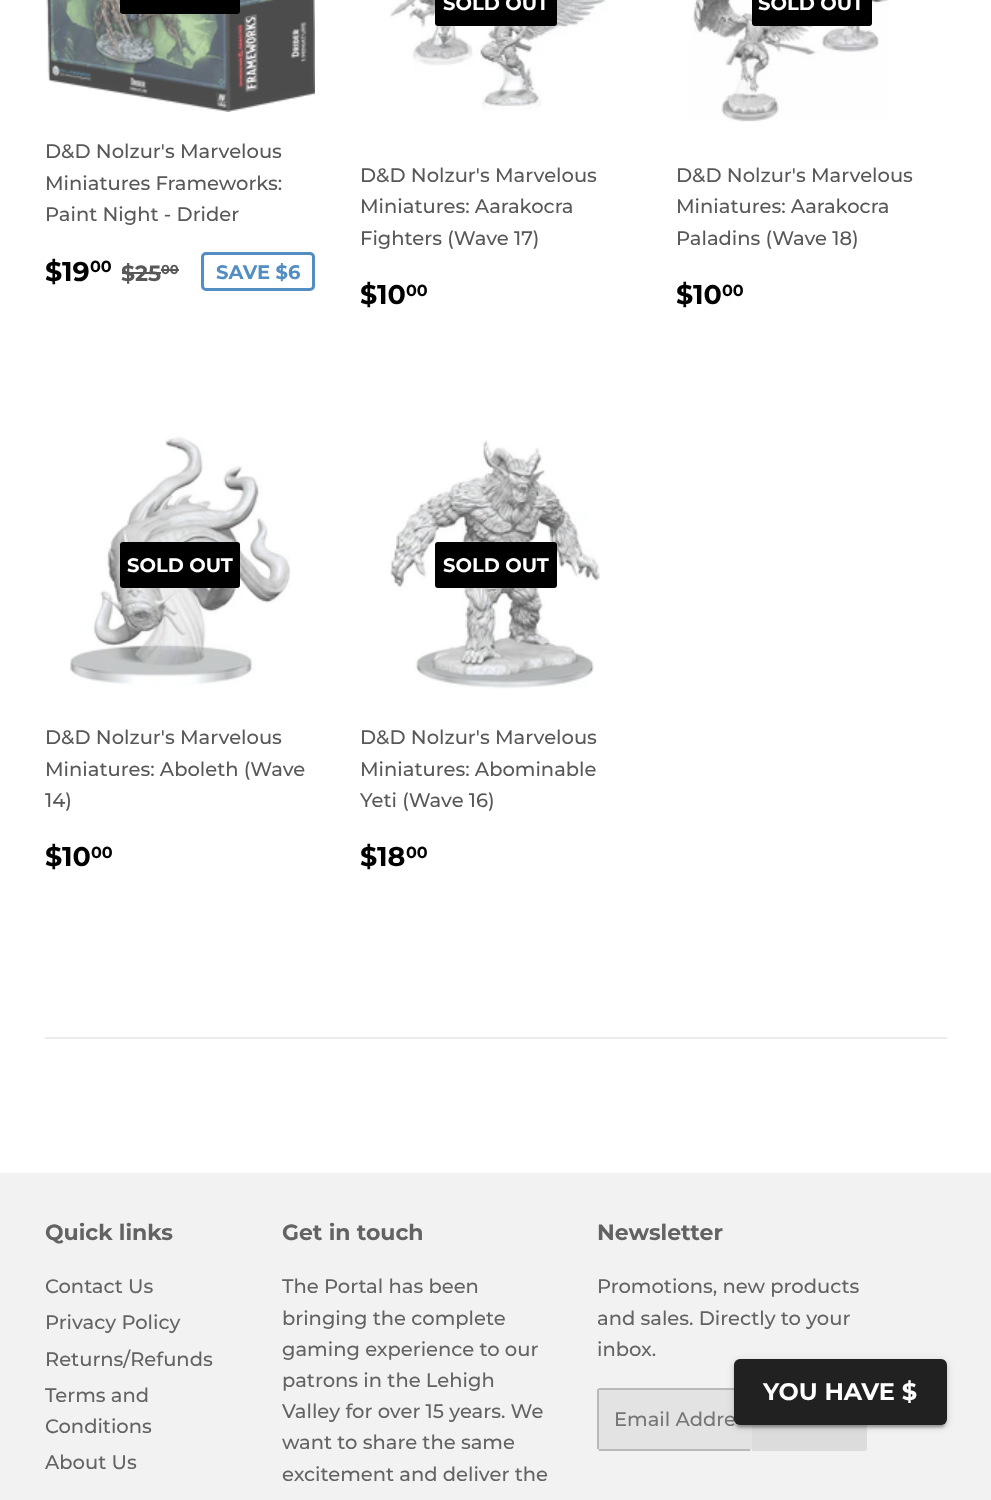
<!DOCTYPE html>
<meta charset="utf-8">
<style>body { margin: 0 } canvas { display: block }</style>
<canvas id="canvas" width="991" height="1500"></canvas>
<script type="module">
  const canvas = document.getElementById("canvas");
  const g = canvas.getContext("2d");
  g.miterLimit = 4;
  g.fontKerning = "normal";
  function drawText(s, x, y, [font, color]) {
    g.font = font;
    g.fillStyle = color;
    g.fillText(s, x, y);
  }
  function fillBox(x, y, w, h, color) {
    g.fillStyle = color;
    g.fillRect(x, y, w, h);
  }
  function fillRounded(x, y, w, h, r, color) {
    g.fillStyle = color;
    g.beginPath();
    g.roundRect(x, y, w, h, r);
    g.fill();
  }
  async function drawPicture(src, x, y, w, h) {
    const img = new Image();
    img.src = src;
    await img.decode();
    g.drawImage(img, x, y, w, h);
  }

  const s1 = ["500 19.5px Montserrat", "#585858"];
  const s2 = ["bold 27px Montserrat", "#000000"];
  const s3 = ["bold 16px Montserrat", "#000000"];
  const s4 = ["bold 22px Montserrat", "#585858"];
  const s5 = ["bold 13px Montserrat", "#585858"];
  const s6 = ["bold 19.5px Montserrat", "#528EC1"];
  const s7 = ["bold 19.5px Montserrat", "#FFFFFF"];
  const s8 = ["bold 22px Montserrat", "#636363"];
  const s9 = ["500 19.5px Montserrat", "#636363"];
  const s10 = ["500 19.5px Montserrat", "#757575"];
  const s11 = ["bold 24px Montserrat", "#FFFFFF"];

  fillBox(0, 0, 991, 1500, "#FFFFFF");
  await drawPicture("pic1.png", 46, 0, 269, 112);
  fillRounded(120, -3, 120, 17, 3, "#000000");
  drawText("D&D Nolzur's Marvelous", 45, 158, s1);
  drawText("Miniatures Frameworks:", 45, 190, s1);
  drawText("Paint Night - Drider", 45, 221, s1);
  drawText("$19", 45, 281, s2);
  drawText("00", 90, 272, s3);
  drawText("$25", 121, 281, s4);
  fillBox(122, 272, 39, 2, "#585858");
  drawText("00", 161, 274, s5);
  fillBox(161, 269, 18, 2, "#585858");
  g.beginPath();
  g.roundRect(202.5, 253.5, 111, 36, 3.5);
  g.strokeStyle = "#528EC1";
  g.lineWidth = 3;
  g.stroke();
  drawText("SAVE $6", 216, 279, s6);
  await drawPicture("pic2.png", 390, 0, 217, 110);
  fillRounded(435, -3, 122, 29, 3, "#000000");
  drawText("SOLD OUT", 443, 10, s7);
  drawText("D&D Nolzur's Marvelous", 360, 182, s1);
  drawText("Miniatures: Aarakocra", 360, 213, s1);
  drawText("Fighters (Wave 17)", 360, 245, s1);
  drawText("$10", 360, 304, s2);
  drawText("00", 406, 296, s3);
  await drawPicture("pic3.png", 690, 0, 199, 122);
  fillRounded(752, -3, 120, 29, 3, "#000000");
  drawText("SOLD OUT", 758, 10, s7);
  drawText("D&D Nolzur's Marvelous", 676, 182, s1);
  drawText("Miniatures: Aarakocra", 676, 213, s1);
  drawText("Paladins (Wave 18)", 676, 245, s1);
  drawText("$10", 676, 304, s2);
  drawText("00", 722, 296, s3);
  await drawPicture("pic4.png", 70, 435, 221, 251);
  fillRounded(120, 542, 120, 46, 3, "#000000");
  drawText("SOLD OUT", 127, 572, s7);
  drawText("D&D Nolzur's Marvelous", 45, 744, s1);
  drawText("Miniatures: Aboleth (Wave", 45, 776, s1);
  drawText("14)", 45, 807, s1);
  drawText("$10", 45, 866, s2);
  drawText("00", 91, 858, s3);
  await drawPicture("pic5.png", 390, 440, 210, 249);
  fillRounded(435, 542, 122, 46, 3, "#000000");
  drawText("SOLD OUT", 443, 572, s7);
  drawText("D&D Nolzur's Marvelous", 360, 744, s1);
  drawText("Miniatures: Abominable", 360, 776, s1);
  drawText("Yeti (Wave 16)", 360, 807, s1);
  drawText("$18", 360, 866, s2);
  drawText("00", 406, 858, s3);
  fillBox(45, 1037, 902, 2, "#ECECEC");
  fillBox(0, 1173, 991, 327, "#F2F2F2");
  drawText("Quick links", 45, 1240, s8);
  drawText("Contact Us", 45, 1293, s9);
  drawText("Privacy Policy", 45, 1329, s9);
  drawText("Returns/Refunds", 45, 1366, s9);
  drawText("Terms and", 45, 1402, s9);
  drawText("Conditions", 45, 1433, s9);
  drawText("About Us", 45, 1469, s9);
  drawText("Get in touch", 282, 1240, s8);
  drawText("The Portal has been", 282, 1293, s9);
  drawText("bringing the complete", 282, 1325, s9);
  drawText("gaming experience to our", 282, 1356, s9);
  drawText("patrons in the Lehigh", 282, 1387, s9);
  drawText("Valley for over 15 years. We", 282, 1418, s9);
  drawText("want to share the same", 282, 1449, s9);
  drawText("excitement and deliver the", 282, 1481, s9);
  drawText("Newsletter", 597, 1240, s8);
  drawText("Promotions, new products", 597, 1293, s9);
  drawText("and sales. Directly to your", 597, 1325, s9);
  drawText("inbox.", 597, 1356, s9);
  fillRounded(597, 1388, 155, 63, 3, "#E3E3E3");
  fillBox(599, 1388, 135, 2, "#B9B9B9");
  fillBox(599, 1449, 151, 2, "#B9B9B9");
  fillBox(597, 1389, 2, 60, "#B9B9B9");
  drawText("Email Addre", 614, 1426, s10);
  g.fillStyle = "#DCDCDC";
  g.beginPath();
  g.roundRect(752, 1388, 115, 63, [0, 3, 3, 0]);
  g.fill();
  g.fillStyle = "rgba(0, 0, 0, 0.12)";
  g.filter = "blur(4px)";
  g.beginPath();
  g.roundRect(734, 1361, 213, 66, 6);
  g.fill();
  g.filter = "none";
  g.fillStyle = "rgba(0, 0, 0, 0.14)";
  g.filter = "blur(1.5px)";
  g.beginPath();
  g.roundRect(734, 1362, 213, 66, 6);
  g.fill();
  g.filter = "none";
  g.fillStyle = "rgba(0, 0, 0, 0.2)";
  g.filter = "blur(1px)";
  g.beginPath();
  g.roundRect(737, 1367, 207, 60, 3);
  g.fill();
  g.filter = "none";
  fillRounded(734, 1359, 213, 66, 6, "#212121");
  drawText("YOU HAVE $", 763, 1400, s11);
</script>
